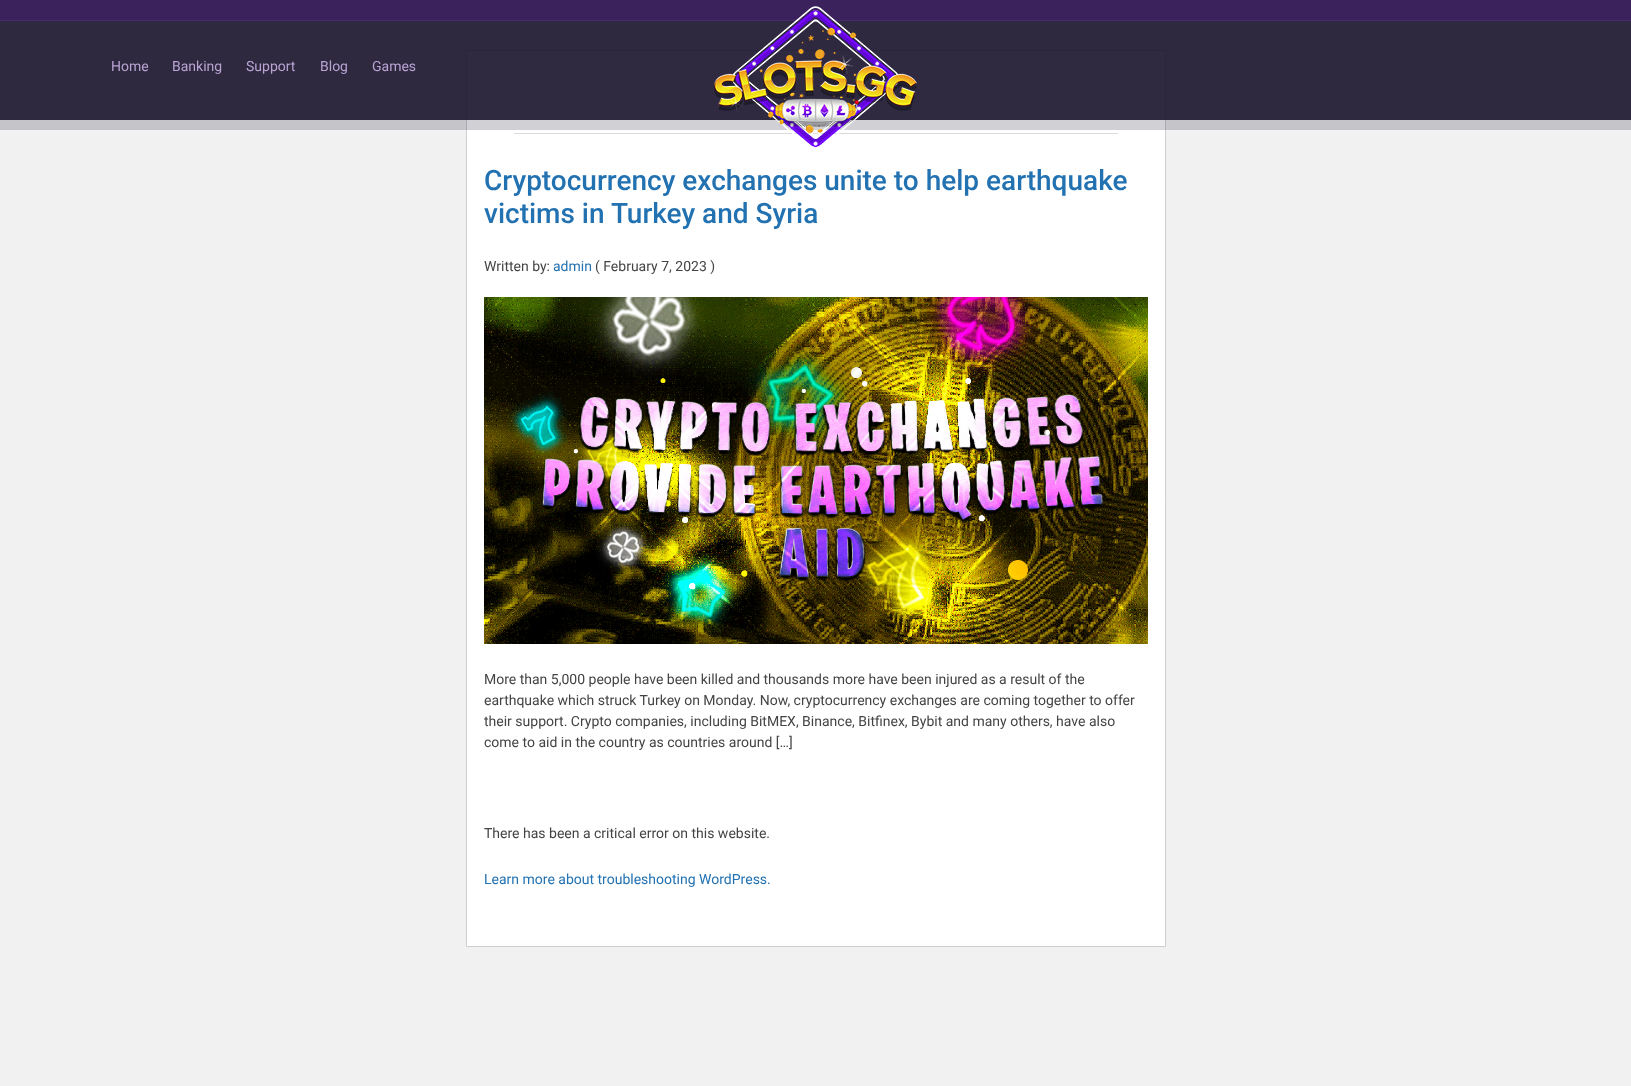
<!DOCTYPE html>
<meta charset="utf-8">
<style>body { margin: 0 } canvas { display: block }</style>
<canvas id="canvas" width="1631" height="1086"></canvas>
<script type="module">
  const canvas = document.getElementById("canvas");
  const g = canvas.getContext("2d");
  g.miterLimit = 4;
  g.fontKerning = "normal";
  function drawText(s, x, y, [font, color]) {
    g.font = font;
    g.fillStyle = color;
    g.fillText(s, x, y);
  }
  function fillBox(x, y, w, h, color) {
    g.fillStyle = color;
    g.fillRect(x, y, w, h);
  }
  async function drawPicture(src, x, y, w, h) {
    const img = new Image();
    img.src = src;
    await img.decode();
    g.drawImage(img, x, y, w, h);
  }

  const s1 = ["14px Roboto", "#B9A4D4"];
  const s2 = ["500 28px Roboto", "#2271B1"];
  const s3 = ["14px Roboto", "#444444"];
  const s4 = ["14px Roboto", "#2271B1"];

  fillBox(0, 0, 1631, 1086, "#F1F1F1");
  g.fillStyle = "#FFFFFF";
  g.beginPath();
  g.rect(466.5, 50.5, 699, 896);
  g.fill();
  g.strokeStyle = "#CCD0D4";
  g.stroke();
  fillBox(0, 21, 1631, 99, "rgba(24, 19, 43, 0.9)");
  fillBox(0, 20, 1631, 1, "#482B6C");
  fillBox(0, 0, 1631, 20, "#3C225C");
  drawText("Home", 111, 71, s1);
  drawText("Banking", 172, 71, s1);
  drawText("Support", 246, 71, s1);
  drawText("Blog", 320, 71, s1);
  drawText("Games", 372, 71, s1);
  fillBox(0, 120, 1631, 10, "rgba(24, 19, 43, 0.2)");
  fillBox(514, 133, 604, 1, "#DADADA");
  await drawPicture("pic1.png", 714, 6, 203, 142);
  drawText("Cryptocurrency exchanges unite to help earthquake", 484, 190, s2);
  drawText("victims in Turkey and Syria", 484, 223, s2);
  drawText("Written by:", 484, 271, s3);
  drawText("admin", 553, 271, s4);
  drawText("( February 7, 2023 )", 595, 271, s3);
  await drawPicture("pic2.png", 484, 297, 664, 347);
  drawText("More than 5,000 people have been killed and thousands more have been injured as a result of the", 484, 684, s3);
  drawText("earthquake which struck Turkey on Monday. Now, cryptocurrency exchanges are coming together to offer", 484, 705, s3);
  drawText("their support. Crypto companies, including BitMEX, Binance, Bitfinex, Bybit and many others, have also", 484, 726, s3);
  drawText("come to aid in the country as countries around […]", 484, 747, s3);
  drawText("There has been a critical error on this website.", 484, 838, s3);
  drawText("Learn more about troubleshooting WordPress.", 484, 884, s4);
</script>
